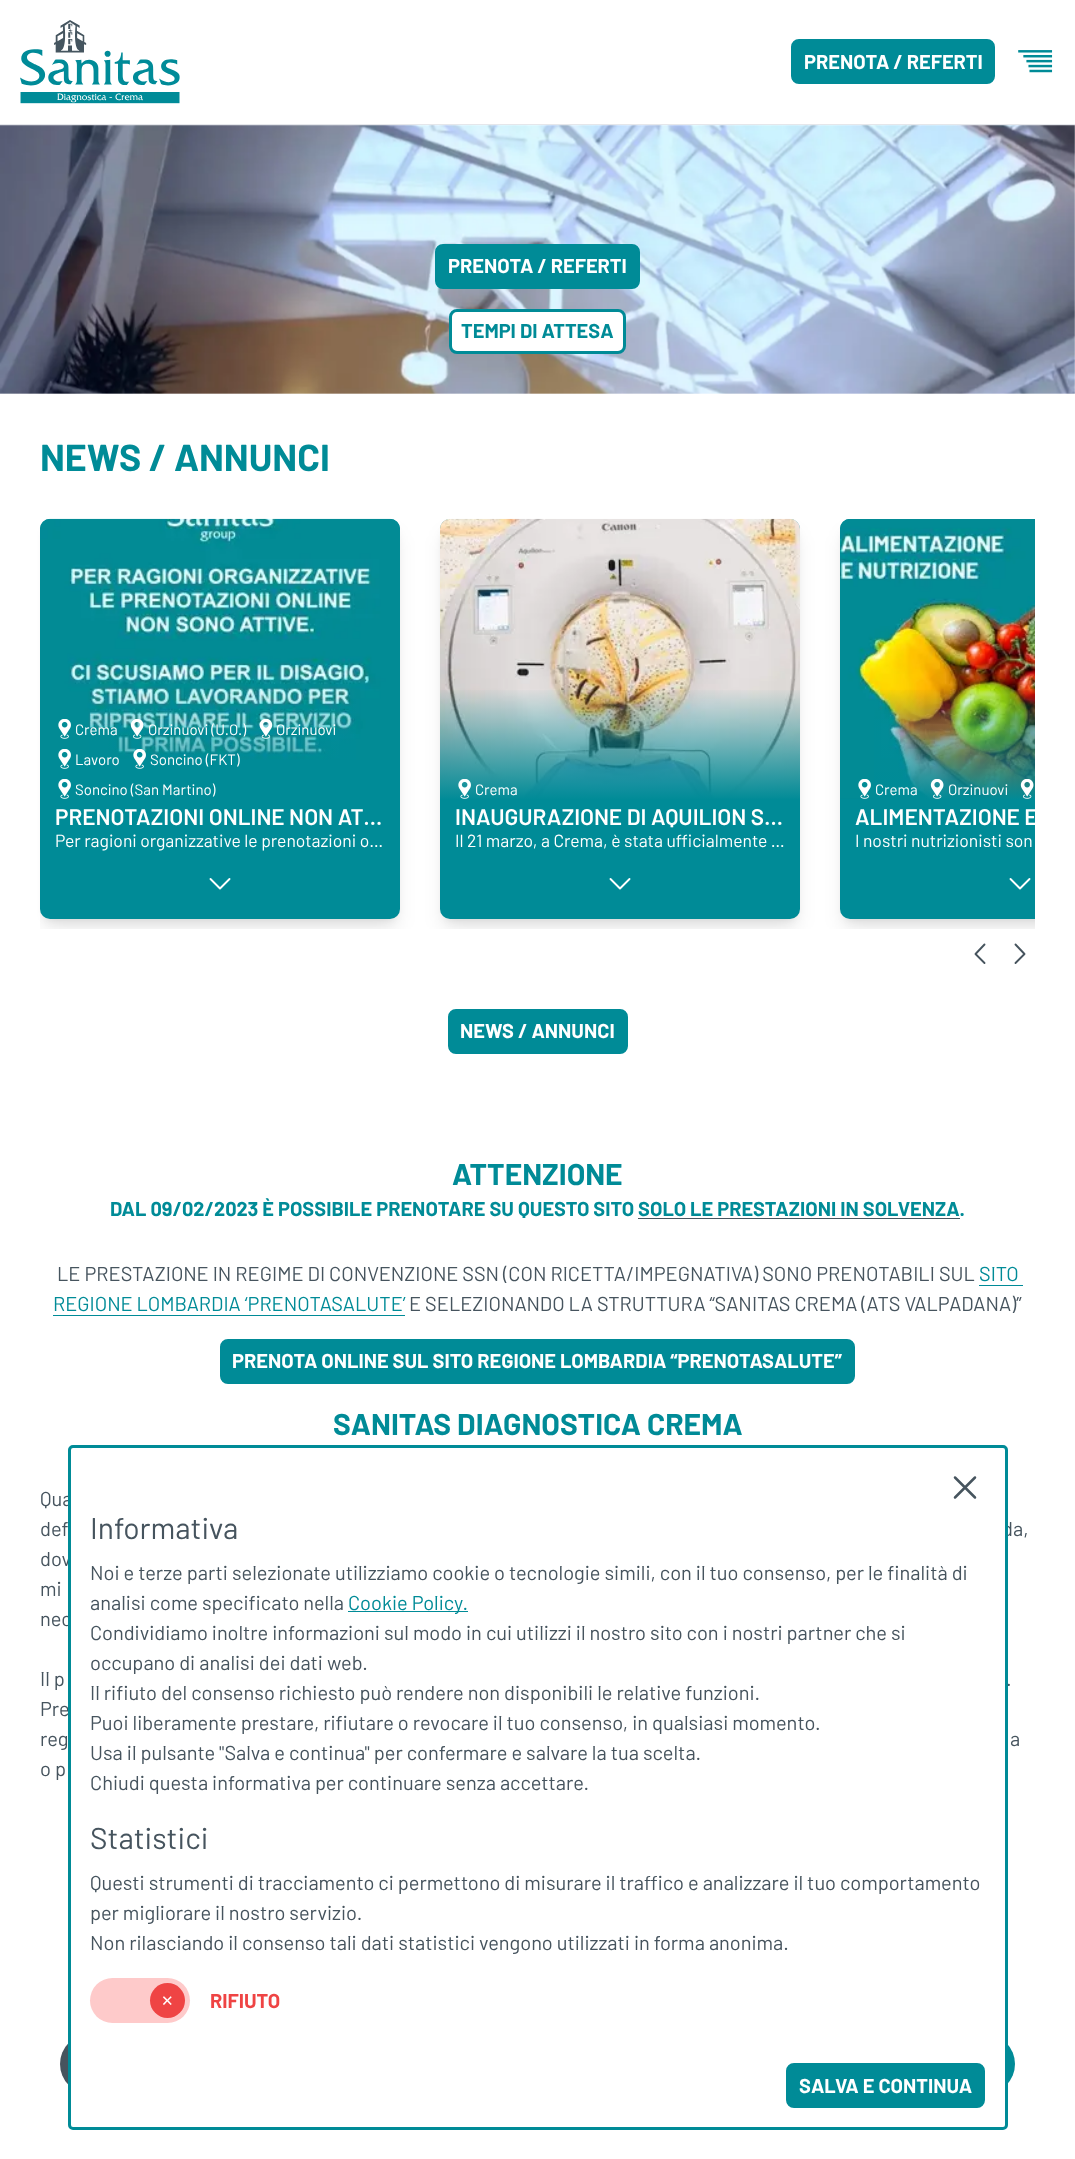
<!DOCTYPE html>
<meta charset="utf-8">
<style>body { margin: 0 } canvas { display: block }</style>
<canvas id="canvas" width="1075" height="2159"></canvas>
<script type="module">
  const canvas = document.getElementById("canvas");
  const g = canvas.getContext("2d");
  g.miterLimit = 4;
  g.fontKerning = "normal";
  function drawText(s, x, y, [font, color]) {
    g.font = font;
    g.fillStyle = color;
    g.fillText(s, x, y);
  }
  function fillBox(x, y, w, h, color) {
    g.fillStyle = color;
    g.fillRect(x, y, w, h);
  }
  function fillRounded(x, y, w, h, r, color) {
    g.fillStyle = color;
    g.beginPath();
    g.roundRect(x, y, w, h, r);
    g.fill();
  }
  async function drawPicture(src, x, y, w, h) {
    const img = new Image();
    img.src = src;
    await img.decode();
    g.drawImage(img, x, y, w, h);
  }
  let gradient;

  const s1 = ["bold 20px Barlow", "#FFFFFF"];
  const s2 = ["bold 20px Barlow", "#008B97"];
  const s3 = ["bold 37.5px Barlow", "#008B97"];
  const s4 = ["15px Barlow", "#FFFFFF"];
  const s5 = ["600 22.5px Barlow", "#FFFFFF"];
  const s6 = ["17.5px Barlow", "#FFFFFF"];
  const s7 = ["bold 30px Barlow", "#008B97"];
  const s8 = ["20px Barlow", "#46545E"];
  const s9 = ["20px Barlow", "#008B97"];
  const s10 = ["30px Barlow", "#46545E"];
  const s11 = ["15px DejaVu Sans", "#FFFFFF"];
  const s12 = ["bold 20px Barlow", "#EF4444"];

  fillBox(0, 0, 1075, 2159, "#FFFFFF");
  fillBox(0, 124, 1075, 1, "#E5E7EB");
  await drawPicture("pic1.png", 20, 20, 160, 84);
  g.fillStyle = "#008B97";
  g.beginPath();
  g.roundRect(792.5, 40.5, 201, 42, 6.5);
  g.fill();
  g.strokeStyle = "#008B97";
  g.lineWidth = 3;
  g.stroke();
  drawText("PRENOTA / REFERTI", 804, 69, s1);
  await drawPicture("pic2.png", 1018, 50, 35, 23);
  await drawPicture("pic3.png", 0, 125, 1075, 269);
  g.fillStyle = "#008B97";
  g.beginPath();
  g.roundRect(436.5, 245.5, 202, 42, 6.5);
  g.fill();
  g.stroke();
  drawText("PRENOTA / REFERTI", 448, 273, s1);
  g.beginPath();
  g.roundRect(450.5, 310.5, 174, 42, 6.5);
  g.fill();
  g.stroke();
  drawText("TEMPI DI ATTESA", 461, 338, s2);
  drawText("NEWS / ANNUNCI", 40, 471, s3);
  g.fillStyle = "rgba(0, 0, 0, 0.1)";
  g.filter = "blur(4px)";
  g.beginPath();
  g.roundRect(45, 529, 350, 390, 5);
  g.fill();
  g.filter = "none";
  g.save();
  g.beginPath();
  g.rect(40, 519, 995, 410);
  g.clip();
  g.filter = "blur(9.5px)";
  g.beginPath();
  g.roundRect(44, 535, 352, 393, 6);
  g.fill();
  g.filter = "none";
  g.restore();
  fillRounded(40, 519, 360, 400, 10, "#008B97");
  await drawPicture("pic4.png", 40, 518, 360, 242);
  gradient = g.createLinearGradient(220, 800, 220, 519);
  gradient.addColorStop(0, "#008B97");
  gradient.addColorStop(0.4, "rgba(0, 139, 151, 0)");
  g.fillStyle = gradient;
  g.fillRect(89, 690, 267, 70);
  await drawPicture("pic5.png", 58, 719, 13, 20);
  drawText("Crema", 75, 735, s4);
  await drawPicture("pic6.png", 130, 719, 14, 20);
  drawText("Orzinuovi (U.O.)", 148, 735, s4);
  await drawPicture("pic7.png", 259, 719, 14, 20);
  drawText("Orzinuovi", 276, 735, s4);
  await drawPicture("pic8.png", 58, 749, 13, 20);
  drawText("Lavoro", 75, 765, s4);
  await drawPicture("pic9.png", 133, 749, 13, 20);
  drawText("Soncino (FKT)", 150, 765, s4);
  await drawPicture("pic10.png", 58, 779, 13, 20);
  drawText("Soncino (San Martino)", 75, 795, s4);
  drawText("PRENOTAZIONI ONLINE NON AT…", 55, 825, s5);
  drawText("Per ragioni organizzative le prenotazioni o…", 55, 847, s6);
  g.beginPath();
  g.moveTo(229.5, 879);
  g.lineTo(220, 888.5);
  g.lineTo(210.5, 879);
  g.strokeStyle = "#FFFFFF";
  g.lineWidth = 1.9;
  g.lineCap = "round";
  g.lineJoin = "round";
  g.stroke();
  g.fillStyle = "rgba(0, 0, 0, 0.1)";
  g.filter = "blur(4px)";
  g.beginPath();
  g.roundRect(445, 529, 350, 390, 5);
  g.fill();
  g.filter = "none";
  g.save();
  g.beginPath();
  g.rect(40, 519, 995, 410);
  g.clip();
  g.filter = "blur(9.5px)";
  g.beginPath();
  g.roundRect(444, 535, 352, 393, 6);
  g.fill();
  g.filter = "none";
  g.restore();
  fillRounded(440, 519, 360, 400, 10, "#008B97");
  await drawPicture("pic11.png", 440, 518, 360, 281);
  gradient = g.createLinearGradient(620, 800, 620, 519);
  gradient.addColorStop(0, "#008B97");
  gradient.addColorStop(0.4, "rgba(0, 139, 151, 0)");
  g.fillStyle = gradient;
  g.fillRect(440, 690, 360, 109);
  await drawPicture("pic12.png", 458, 779, 13, 20);
  drawText("Crema", 475, 795, s4);
  drawText("INAUGURAZIONE DI AQUILION S…", 455, 825, s5);
  drawText("Il 21 marzo, a Crema, è stata ufficialmente …", 455, 847, s6);
  g.beginPath();
  g.moveTo(629.5, 879);
  g.lineTo(620, 888.5);
  g.lineTo(610.5, 879);
  g.stroke();
  g.save();
  g.beginPath();
  g.rect(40, 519, 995, 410);
  g.clip();
  g.fillStyle = "rgba(0, 0, 0, 0.1)";
  g.filter = "blur(4px)";
  g.beginPath();
  g.roundRect(845, 529, 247, 390, 5);
  g.fill();
  g.filter = "none";
  g.restore();
  g.beginPath();
  g.moveTo(984.5, 963);
  g.lineTo(975.5, 954);
  g.lineTo(984.5, 944.5);
  g.moveTo(1015.5, 944.5);
  g.lineTo(1024.5, 954);
  g.lineTo(1015.5, 963);
  g.strokeStyle = "#46545E";
  g.stroke();
  g.save();
  g.beginPath();
  g.rect(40, 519, 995, 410);
  g.clip();
  g.fillStyle = "rgba(0, 0, 0, 0.1)";
  g.filter = "blur(9.5px)";
  g.beginPath();
  g.roundRect(844, 535, 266, 393, 6);
  g.fill();
  g.filter = "none";
  g.restore();
  g.fillStyle = "#008B97";
  g.beginPath();
  g.roundRect(840, 519, 195, 400, [10, 0, 0, 10]);
  g.fill();
  await drawPicture("pic13.png", 840, 519, 195, 280);
  gradient = g.createLinearGradient(1020, 800, 1020, 519);
  gradient.addColorStop(0, "#008B97");
  gradient.addColorStop(0.4, "rgba(0, 139, 151, 0)");
  g.fillStyle = gradient;
  g.fillRect(874, 690, 161, 109);
  await drawPicture("pic14.png", 858, 779, 13, 20);
  drawText("Crema", 875, 795, s4);
  await drawPicture("pic15.png", 930, 779, 14, 20);
  drawText("Orzinuovi", 948, 795, s4);
  await drawPicture("pic16.png", 1020, 779, 14, 20);
  g.save();
  g.beginPath();
  g.rect(855, 799, 180, 30);
  g.clip();
  drawText("ALIMENTAZIONE E", 855, 825, s5);
  g.restore();
  drawText("I nostri nutrizionisti son", 855, 847, s6);
  g.beginPath();
  g.moveTo(1029.5, 879);
  g.lineTo(1020, 888.5);
  g.lineTo(1010.5, 879);
  g.strokeStyle = "#FFFFFF";
  g.stroke();
  g.fillStyle = "#008B97";
  g.beginPath();
  g.roundRect(449.5, 1010.5, 177, 42, 6.5);
  g.fill();
  g.strokeStyle = "#008B97";
  g.lineWidth = 3;
  g.lineJoin = "miter";
  g.stroke();
  drawText("NEWS / ANNUNCI", 460, 1038, s1);
  drawText("ATTENZIONE", 452, 1185, s7);
  drawText("DAL 09/02/2023 È POSSIBILE PRENOTARE SU QUESTO SITO SOLO LE PRESTAZIONI IN SOLVENZA.", 110, 1216, s2);
  fillBox(638, 1218, 322, 1, "#46545E");
  drawText("LE PRESTAZIONE IN REGIME DI CONVENZIONE SSN (CON RICETTA/IMPEGNATIVA) SONO PRENOTABILI SUL", 57, 1281, s8);
  drawText("SITO", 979, 1281, s9);
  fillBox(979, 1285, 44, 1, "#008B97");
  drawText("REGIONE LOMBARDIA ‘PRENOTASALUTE’", 53, 1311, s9);
  fillBox(53, 1315, 352, 1, "#008B97");
  drawText("E SELEZIONANDO LA STRUTTURA “SANITAS CREMA (ATS VALPADANA)”", 409, 1311, s8);
  g.fillStyle = "#008B97";
  g.beginPath();
  g.roundRect(221.5, 1340.5, 632, 42, 6.5);
  g.fill();
  g.stroke();
  drawText("PRENOTA ONLINE SUL SITO REGIONE LOMBARDIA “PRENOTASALUTE”", 232, 1368, s1);
  drawText("SANITAS DIAGNOSTICA CREMA", 333, 1435, s7);
  drawText("Qua", 40, 1506, s8);
  drawText("def", 40, 1536, s8);
  drawText("da,", 1002, 1536, s8);
  drawText("dov", 40, 1566, s8);
  drawText("mi", 40, 1596, s8);
  drawText("nec", 40, 1626, s8);
  drawText("Il p", 40, 1686, s8);
  drawText(".", 1006, 1686, s8);
  drawText("Pre", 40, 1716, s8);
  drawText("reg", 40, 1746, s8);
  drawText("a", 1010, 1746, s8);
  drawText("o p", 40, 1776, s8);
  g.beginPath();
  g.arc(90, 2064, 30, 0, Math.PI * 2);
  g.fill();
  g.fillStyle = "#008B97";
  g.beginPath();
  g.arc(985, 2064, 30, 0, Math.PI * 2);
  g.fill();
  g.fillStyle = "#FFFFFF";
  g.beginPath();
  g.roundRect(69.5, 1446.5, 937, 682, 3.5);
  g.fill();
  g.stroke();
  g.beginPath();
  g.moveTo(955, 1497.5);
  g.lineTo(975, 1477.5);
  g.moveTo(955, 1477.5);
  g.lineTo(975, 1497.5);
  g.strokeStyle = "#46545E";
  g.lineWidth = 2.5;
  g.lineJoin = "round";
  g.stroke();
  drawText("Informativa", 90, 1539, s10);
  drawText("Noi e terze parti selezionate utilizziamo cookie o tecnologie simili, con il tuo consenso, per le finalità di", 90, 1580, s8);
  drawText("analisi come specificato nella", 90, 1610, s8);
  fillBox(348, 1611, 120, 1, "#008B97");
  drawText("Cookie Policy.", 348, 1610, s9);
  drawText("Condividiamo inoltre informazioni sul modo in cui utilizzi il nostro sito con i nostri partner che si", 90, 1640, s8);
  drawText("occupano di analisi dei dati web.", 90, 1670, s8);
  drawText("Il rifiuto del consenso richiesto può rendere non disponibili le relative funzioni.", 90, 1700, s8);
  drawText("Puoi liberamente prestare, rifiutare o revocare il tuo consenso, in qualsiasi momento.", 90, 1730, s8);
  drawText("Usa il pulsante \"Salva e continua\" per confermare e salvare la tua scelta.", 90, 1760, s8);
  drawText("Chiudi questa informativa per continuare senza accettare.", 90, 1790, s8);
  drawText("Statistici", 90, 1849, s10);
  drawText("Questi strumenti di tracciamento ci permettono di misurare il traffico e analizzare il tuo comportamento", 90, 1890, s8);
  drawText("per migliorare il nostro servizio.", 90, 1920, s8);
  drawText("Non rilasciando il consenso tali dati statistici vengono utilizzati in forma anonima.", 90, 1950, s8);
  fillRounded(90, 1978, 100, 45, 22.5, "#FECACA");
  g.fillStyle = "#EF4444";
  g.beginPath();
  g.arc(167.5, 2000.5, 17.5, 0, Math.PI * 2);
  g.fill();
  drawText("✕", 161, 2006, s11);
  drawText("RIFIUTO", 210, 2008, s12);
  g.fillStyle = "#008B97";
  g.beginPath();
  g.roundRect(787.5, 2064.5, 196, 42, 6.5);
  g.fill();
  g.strokeStyle = "#008B97";
  g.lineWidth = 3;
  g.lineJoin = "miter";
  g.stroke();
  drawText("SALVA E CONTINUA", 799, 2093, s1);
</script>
